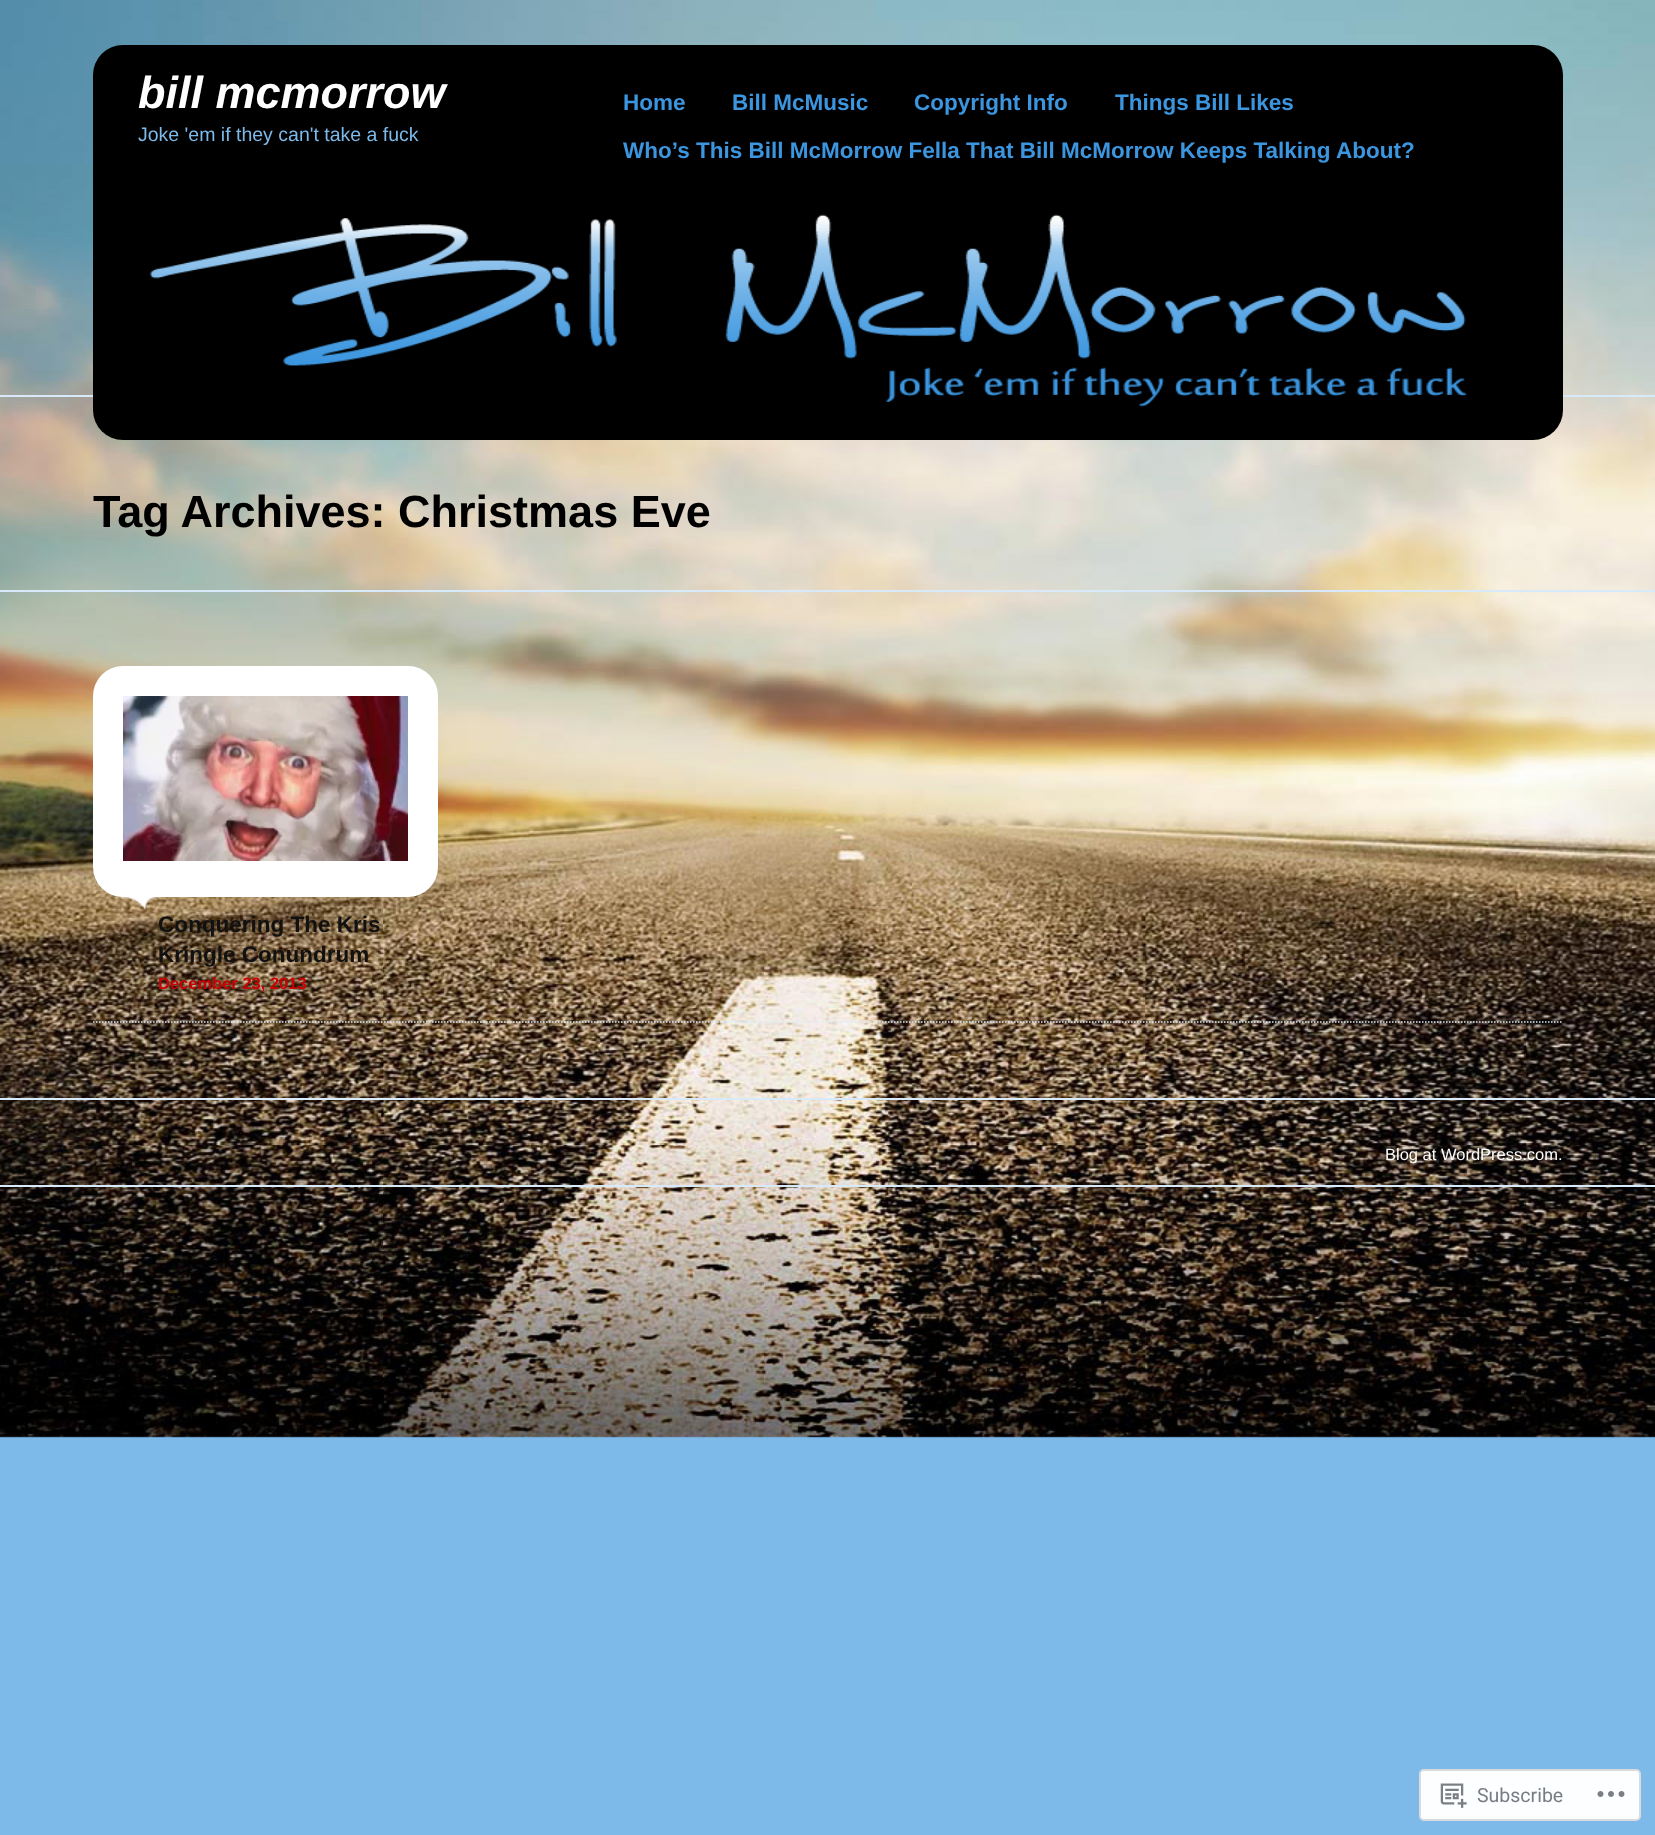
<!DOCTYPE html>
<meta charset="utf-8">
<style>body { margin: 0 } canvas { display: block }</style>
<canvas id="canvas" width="1655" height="1835"></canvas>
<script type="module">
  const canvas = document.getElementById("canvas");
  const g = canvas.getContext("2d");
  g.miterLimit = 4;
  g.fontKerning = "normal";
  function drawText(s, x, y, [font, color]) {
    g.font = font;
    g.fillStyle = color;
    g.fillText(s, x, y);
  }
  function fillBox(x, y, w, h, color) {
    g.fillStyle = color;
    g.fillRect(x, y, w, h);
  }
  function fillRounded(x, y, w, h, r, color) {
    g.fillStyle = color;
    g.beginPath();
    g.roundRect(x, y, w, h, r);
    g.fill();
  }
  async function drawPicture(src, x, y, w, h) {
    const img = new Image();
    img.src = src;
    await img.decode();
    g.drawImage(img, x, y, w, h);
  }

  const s1 = ["italic bold 45px Liberation Sans", "#FFFFFF"];
  const s2 = ["19.5px Liberation Sans", "#7DBAEA"];
  const s3 = ["bold 22.5px Liberation Sans", "#3C96DF"];
  const s4 = ["bold 45px Liberation Sans", "#000000"];
  const s5 = ["bold 22.5px Liberation Sans", "#111111"];
  const s6 = ["bold 16.5px Liberation Sans", "#CC0000"];
  const s7 = ["16.5px Liberation Sans", "#FFFFFF"];
  const s8 = ["19.5px Roboto", "#787D84"];

  fillBox(0, 0, 1655, 1835, "#7DBAEA");
  await drawPicture("pic1.png", 0, 0, 1655, 1438);
  fillBox(0, 395, 1655, 2, "#D8EAF9");
  fillRounded(93, 45, 1470, 395, 30, "#000000");
  drawText("bill mcmorrow", 138, 108, s1);
  drawText("Joke 'em if they can't take a fuck", 138, 141, s2);
  drawText("Home", 623, 110, s3);
  drawText("Bill McMusic", 732, 110, s3);
  drawText("Copyright Info", 914, 110, s3);
  drawText("Things Bill Likes", 1115, 110, s3);
  drawText("Who’s This Bill McMorrow Fella That Bill McMorrow Keeps Talking About?", 623, 158, s3);
  await drawPicture("pic2.png", 149, 214, 1319, 193);
  fillBox(0, 590, 1655, 2, "#D8EAF9");
  drawText("Tag Archives: Christmas Eve", 93, 527, s4);
  g.beginPath();
  g.moveTo(93, 1022);
  g.lineTo(1563, 1022);
  g.strokeStyle = "#D8EAF9";
  g.lineWidth = 1.5;
  g.setLineDash([1.5, 1.5]);
  g.stroke();
  fillRounded(93, 666, 345, 231, 30, "#FFFFFF");
  await drawPicture("pic3.png", 123, 696, 285, 165);
  await drawPicture("pic4.png", 115, 897, 46, 13);
  drawText("Conquering The Kris", 158, 932, s5);
  drawText("Kringle Conundrum", 158, 962, s5);
  drawText("December 23, 2013", 158, 989, s6);
  fillBox(0, 1098, 1655, 2, "#D8EAF9");
  fillBox(0, 1185, 1655, 2, "#D8EAF9");
  drawText("Blog at WordPress.com.", 1385, 1160, s7);
  g.fillStyle = "#FCFEFF";
  g.beginPath();
  g.roundRect(1420, 1770, 220, 50, 4);
  g.fill();
  g.strokeStyle = "#DADBDE";
  g.lineWidth = 2;
  g.setLineDash([]);
  g.stroke();
  await drawPicture("pic5.png", 1440, 1783, 27, 25);
  drawText("Subscribe", 1477, 1802, s8);
  await drawPicture("pic6.png", 1597, 1791, 28, 6);
</script>
